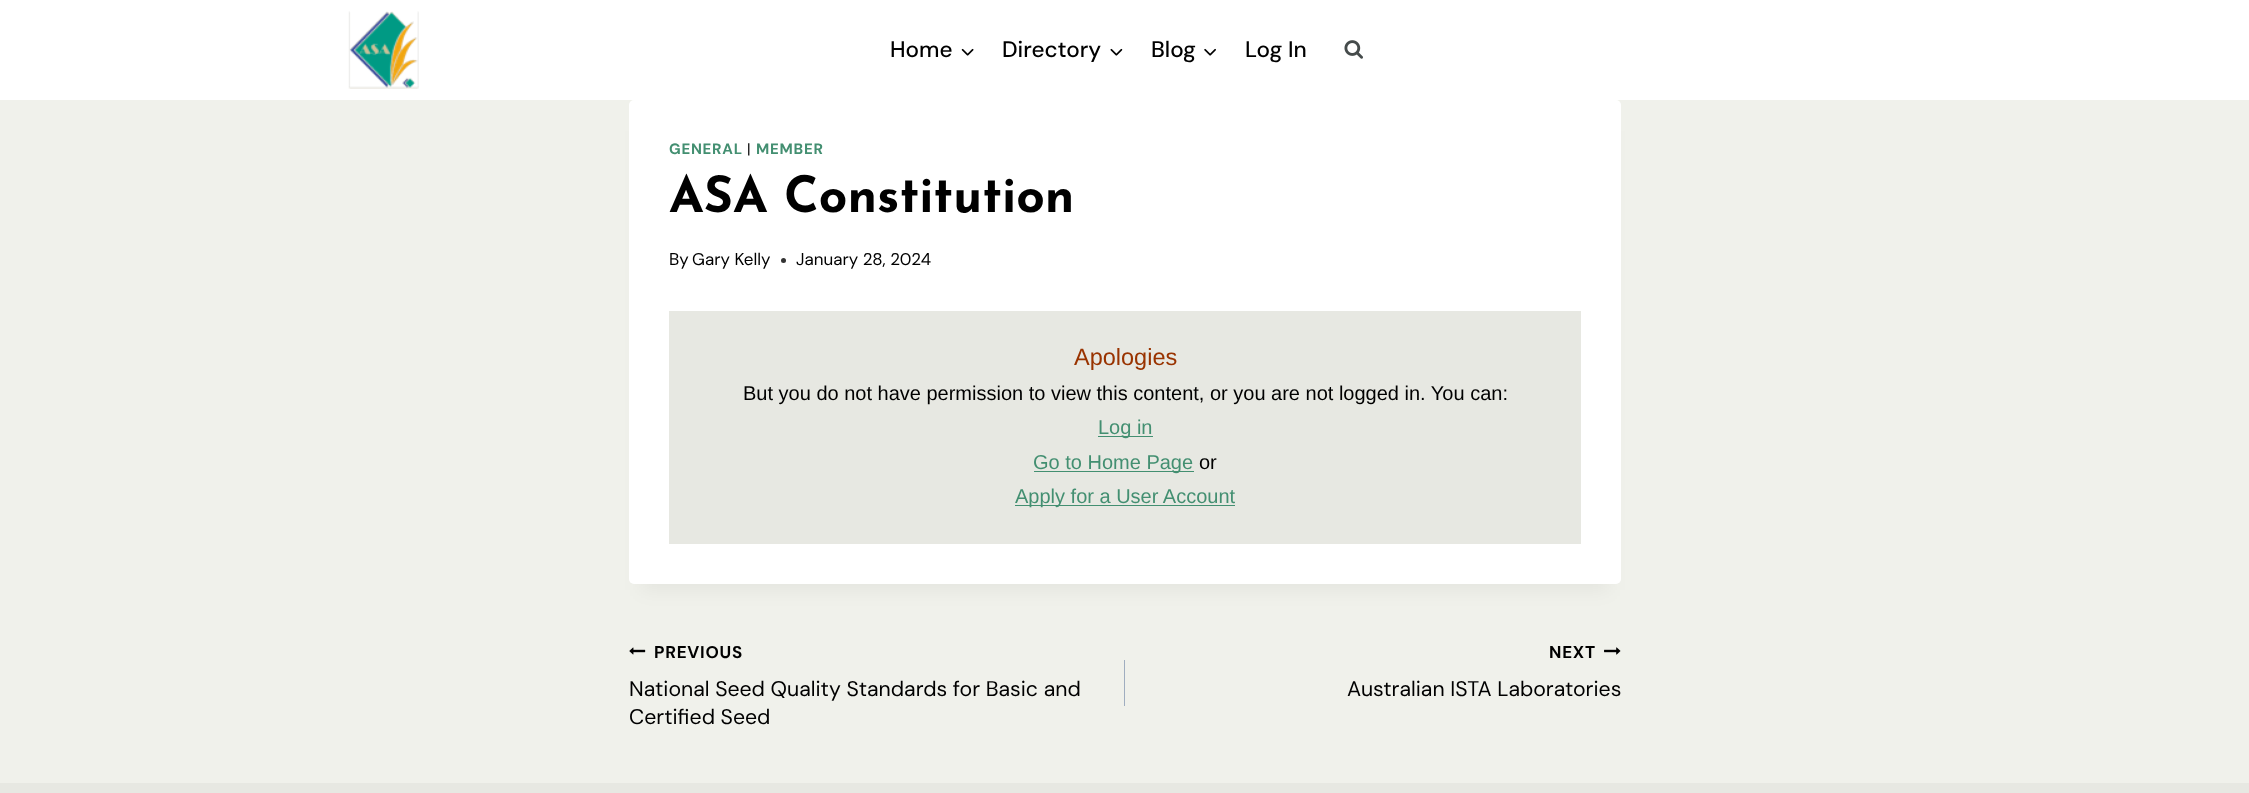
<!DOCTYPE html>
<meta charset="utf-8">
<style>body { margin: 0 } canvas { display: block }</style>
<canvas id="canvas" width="2249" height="793"></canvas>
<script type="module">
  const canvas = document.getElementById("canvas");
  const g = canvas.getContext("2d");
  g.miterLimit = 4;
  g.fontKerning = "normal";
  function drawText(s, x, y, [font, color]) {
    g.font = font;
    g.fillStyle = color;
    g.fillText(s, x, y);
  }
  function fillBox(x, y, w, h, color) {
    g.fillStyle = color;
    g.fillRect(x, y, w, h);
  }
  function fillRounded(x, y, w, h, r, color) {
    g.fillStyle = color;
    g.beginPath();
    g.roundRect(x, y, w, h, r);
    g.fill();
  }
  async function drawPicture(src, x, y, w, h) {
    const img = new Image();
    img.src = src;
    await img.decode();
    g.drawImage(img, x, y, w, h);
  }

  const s1 = ["500 22.5px DM Sans", "#000000"];
  const s2 = ["bold 15px DM Sans", "#438F71"];
  const s3 = ["15px DM Sans", "#000000"];
  const s4 = ["bold 50px Josefin Sans", "#000000"];
  const s5 = ["17px DM Sans", "#000000"];
  const s6 = ["23.5px Liberation Sans", "#993300"];
  const s7 = ["20px Liberation Sans", "#000000"];
  const s8 = ["20px Liberation Sans", "#438F71"];
  const s9 = ["bold 17px DM Sans", "#000000"];
  const s10 = ["21.25px DM Sans", "#000000"];

  fillBox(0, 0, 2249, 793, "#F0F1EB");
  fillBox(0, 0, 2249, 100, "#FFFFFF");
  await drawPicture("pic1.png", 348, 11, 71, 78);
  drawText("Home", 890, 57, s1);
  await drawPicture("pic2.png", 961, 48, 13, 8);
  drawText("Directory", 1002, 57, s1);
  await drawPicture("pic3.png", 1110, 48, 13, 8);
  drawText("Blog", 1151, 57, s1);
  await drawPicture("pic4.png", 1204, 48, 12, 8);
  drawText("Log In", 1245, 57, s1);
  await drawPicture("pic5.png", 1344, 40, 19, 19);
  g.fillStyle = "rgba(0, 0, 0, 0.05)";
  g.filter = "blur(9.5px)";
  g.beginPath();
  g.rect(641, 131, 968, 459);
  g.fill();
  g.filter = "none";
  fillRounded(629, 100, 992, 484, 5, "#FFFFFF");
  g.letterSpacing = "0.75px";
  drawText("GENERAL", 669, 154, s2);
  drawText("|", 747, 154, s3);
  drawText("MEMBER", 756, 154, s2);
  g.letterSpacing = "0px";
  drawText("ASA Constitution", 669, 212, s4);
  drawText("By", 669, 265, s5);
  drawText("Gary Kelly", 692, 265, s5);
  g.fillStyle = "#333333";
  g.beginPath();
  g.arc(783.5, 260.5, 2.5, 0, Math.PI * 2);
  g.fill();
  drawText("January 28, 2024", 796, 265, s5);
  fillBox(669, 311, 912, 233, "#E7E8E2");
  drawText("Apologies", 1074, 365, s6);
  drawText("But you do not have permission to view this content, or you are not logged in. You can:", 743, 400, s7);
  fillBox(1098, 436, 55, 1, "#438F71");
  drawText("Log in", 1098, 434, s8);
  fillBox(1034, 471, 160, 1, "#438F71");
  drawText("Go to Home Page", 1033, 469, s8);
  drawText("or", 1199, 469, s7);
  fillBox(1015, 505, 220, 1, "#438F71");
  drawText("Apply for a User Account", 1015, 503, s8);
  await drawPicture("pic6.png", 629, 647, 17, 8);
  g.letterSpacing = "0.75px";
  drawText("PREVIOUS", 654, 658, s9);
  g.letterSpacing = "0px";
  drawText("National Seed Quality Standards for Basic and", 629, 696, s10);
  drawText("Certified Seed", 629, 724, s10);
  fillBox(1124, 660, 1, 46, "#A0AEC0");
  g.letterSpacing = "0.75px";
  drawText("NEXT", 1549, 658, s9);
  await drawPicture("pic7.png", 1604, 647, 17, 8);
  g.letterSpacing = "0px";
  drawText("Australian ISTA Laboratories", 1347, 696, s10);
  fillBox(0, 783, 2249, 10, "#E7E8E2");
</script>
